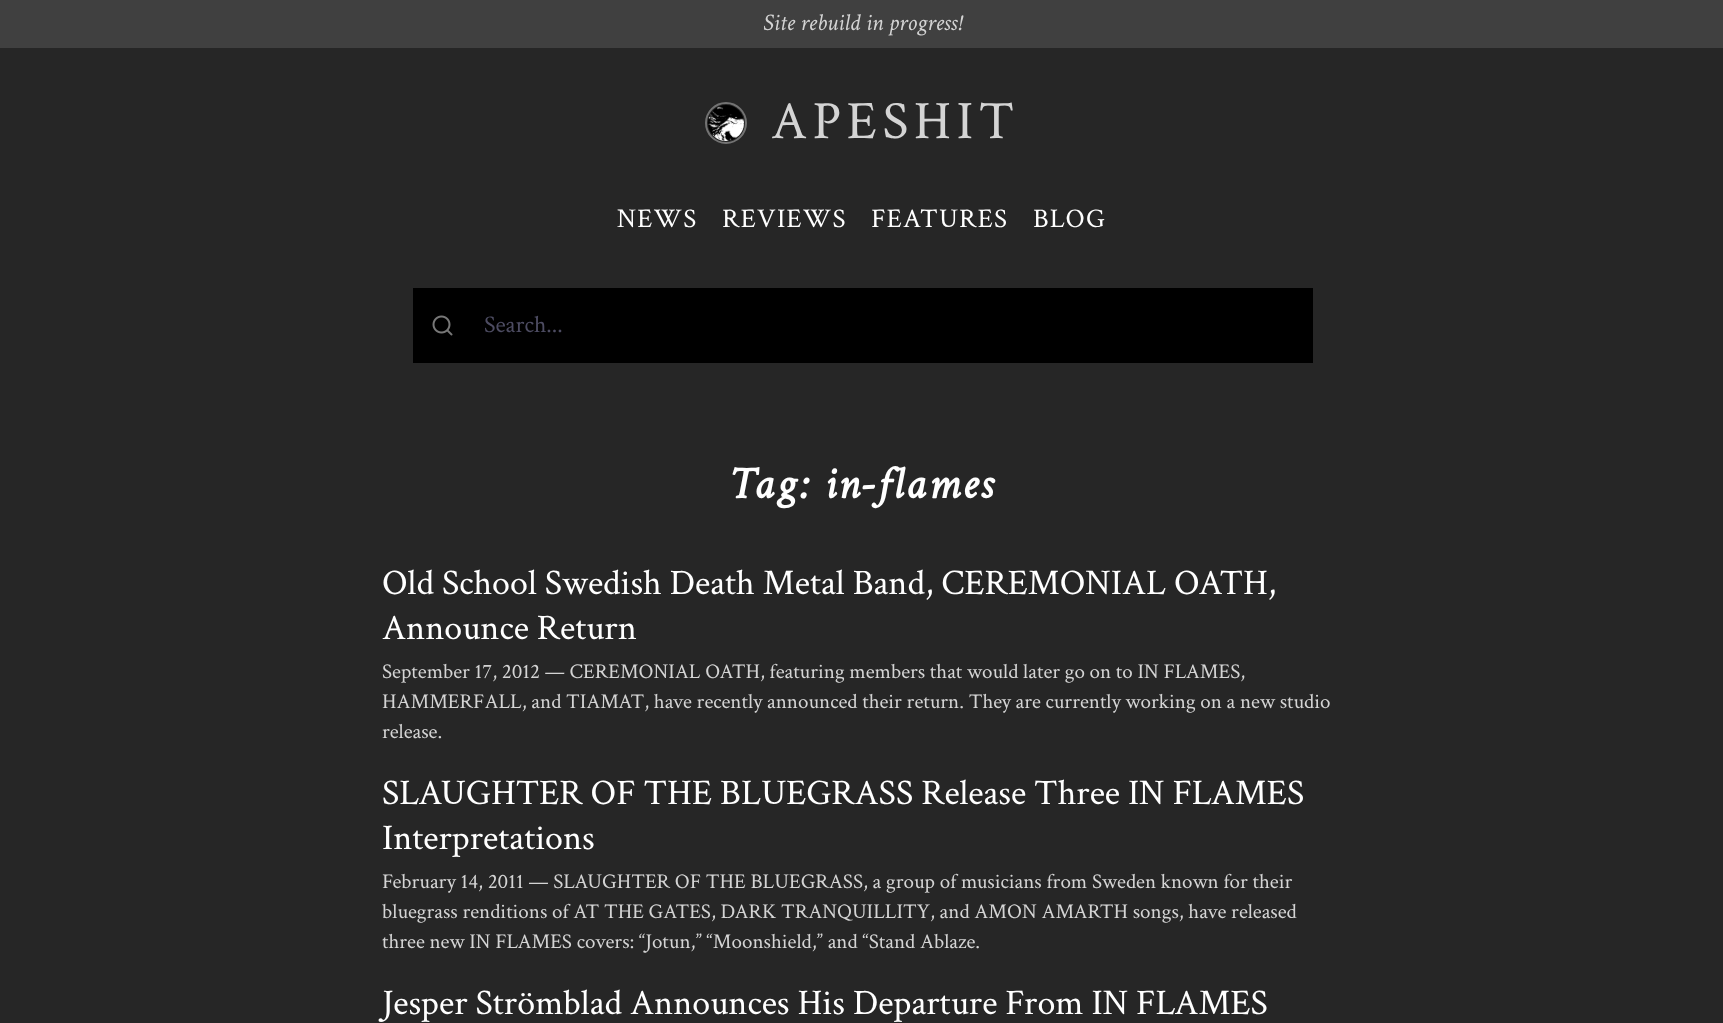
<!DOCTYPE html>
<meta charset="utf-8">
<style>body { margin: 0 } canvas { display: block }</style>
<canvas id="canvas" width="1723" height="1023"></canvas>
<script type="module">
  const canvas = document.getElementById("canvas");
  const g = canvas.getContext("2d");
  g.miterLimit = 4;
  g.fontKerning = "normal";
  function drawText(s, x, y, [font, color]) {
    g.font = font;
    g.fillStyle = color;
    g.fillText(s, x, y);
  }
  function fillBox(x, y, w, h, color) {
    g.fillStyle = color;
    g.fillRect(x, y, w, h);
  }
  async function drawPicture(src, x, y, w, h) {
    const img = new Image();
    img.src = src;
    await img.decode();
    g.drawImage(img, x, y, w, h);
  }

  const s1 = ["italic 24px Crimson Text", "#D4D4D4"];
  const s2 = ["54px Crimson Text", "#D4D4D4"];
  const s3 = ["27px Crimson Text", "#FFFFFF"];
  const s4 = ["24px Crimson Text", "#4D4C62"];
  const s5 = ["italic bold 45px Crimson Text", "#FFFFFF"];
  const s6 = ["36px Crimson Text", "#FFFFFF"];
  const s7 = ["21px Crimson Text", "#D4D4D4"];

  fillBox(0, 0, 1723, 1023, "#262626");
  fillBox(0, 0, 1723, 48, "#404040");
  drawText("Site rebuild in progress!", 763, 30, s1);
  g.beginPath();
  g.arc(726, 123, 20, 0, Math.PI * 2);
  g.strokeStyle = "#737373";
  g.lineWidth = 2;
  g.stroke();
  await drawPicture("pic1.png", 708, 105, 36, 36);
  g.letterSpacing = "5.5px";
  drawText("APESHIT", 771, 138, s2);
  g.letterSpacing = "1.25px";
  drawText("NEWS", 617, 227, s3);
  drawText("REVIEWS", 722, 227, s3);
  drawText("FEATURES", 871, 227, s3);
  drawText("BLOG", 1033, 227, s3);
  fillBox(413, 288, 900, 75, "#000000");
  await drawPicture("pic2.png", 432, 315, 21, 21);
  g.save();
  g.beginPath();
  g.rect(485, 311, 778, 31);
  g.clip();
  g.letterSpacing = "0px";
  drawText("Search...", 484, 332, s4);
  g.restore();
  g.letterSpacing = "2.25px";
  drawText("Tag: in-flames", 729, 498, s5);
  g.letterSpacing = "0px";
  drawText("Old School Swedish Death Metal Band, CEREMONIAL OATH,", 382, 594, s6);
  drawText("Announce Return", 382, 639, s6);
  drawText("September 17, 2012 — CEREMONIAL OATH, featuring members that would later go on to IN FLAMES,", 382, 678, s7);
  drawText("HAMMERFALL, and TIAMAT, have recently announced their return. They are currently working on a new studio", 382, 708, s7);
  drawText("release.", 382, 738, s7);
  drawText("SLAUGHTER OF THE BLUEGRASS Release Three IN FLAMES", 382, 804, s6);
  drawText("Interpretations", 382, 849, s6);
  drawText("February 14, 2011 — SLAUGHTER OF THE BLUEGRASS, a group of musicians from Sweden known for their", 382, 888, s7);
  drawText("bluegrass renditions of AT THE GATES, DARK TRANQUILLITY, and AMON AMARTH songs, have released", 382, 918, s7);
  drawText("three new IN FLAMES covers: “Jotun,” “Moonshield,” and “Stand Ablaze.", 382, 948, s7);
  drawText("Jesper Strömblad Announces His Departure From IN FLAMES", 382, 1014, s6);
</script>
